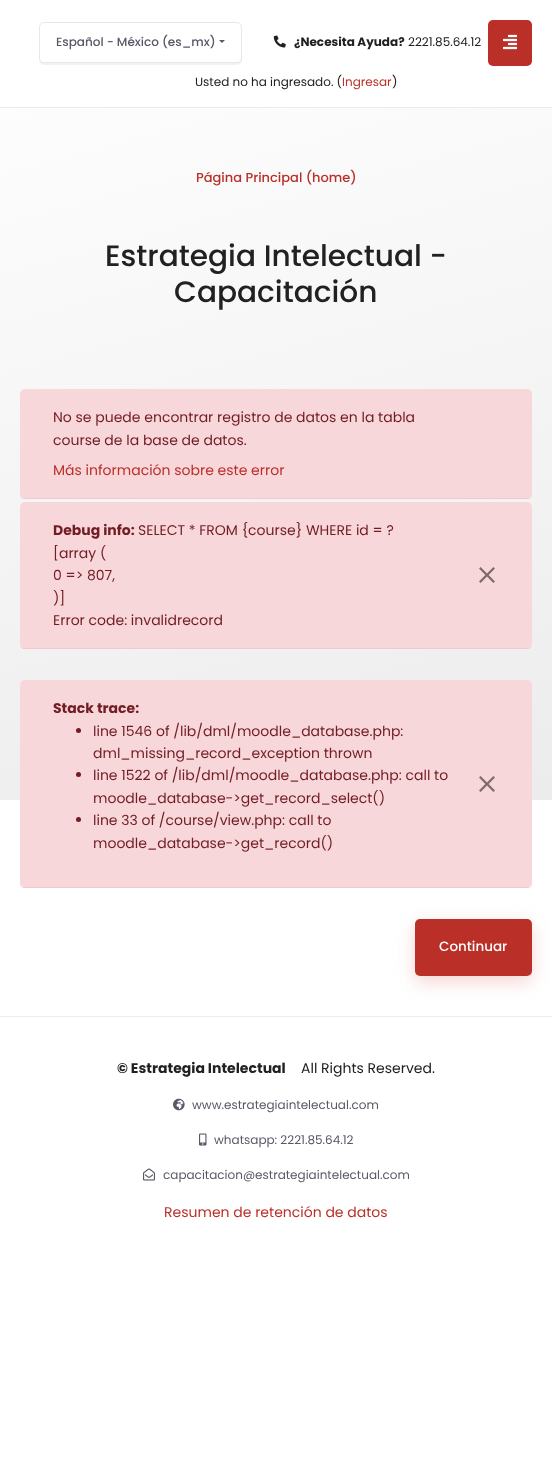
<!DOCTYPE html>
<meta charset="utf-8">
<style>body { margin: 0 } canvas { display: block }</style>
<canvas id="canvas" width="552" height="1472"></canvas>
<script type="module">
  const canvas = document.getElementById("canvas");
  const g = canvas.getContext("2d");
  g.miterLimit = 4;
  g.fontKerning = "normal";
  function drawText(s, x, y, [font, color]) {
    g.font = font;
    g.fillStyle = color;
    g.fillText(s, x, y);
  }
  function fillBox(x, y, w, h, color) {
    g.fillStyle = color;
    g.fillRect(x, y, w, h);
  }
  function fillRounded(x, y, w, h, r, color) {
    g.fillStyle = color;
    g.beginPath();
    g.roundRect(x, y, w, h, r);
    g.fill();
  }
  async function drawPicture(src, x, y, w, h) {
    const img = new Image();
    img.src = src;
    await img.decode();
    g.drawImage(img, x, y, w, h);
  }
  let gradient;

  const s1 = ["500 12px Poppins", "#575967"];
  const s2 = ["bold 12px Poppins", "#212121"];
  const s3 = ["12px Poppins", "#212121"];
  const s4 = ["12px Poppins", "#BA3029"];
  const s5 = ["500 13px Poppins", "#BA3029"];
  const s6 = ["500 29.6px Poppins", "#212121"];
  const s7 = ["14px Poppins", "#721C24"];
  const s8 = ["14px Poppins", "#BA3029"];
  const s9 = ["bold 14px Poppins", "#721C24"];
  const s10 = ["500 13.5px Poppins", "#FFFFFF"];
  const s11 = ["bold 14px Poppins", "#212121"];
  const s12 = ["14px Poppins", "#212121"];
  const s13 = ["12px Poppins", "#575967"];

  fillBox(0, 0, 552, 1472, "#FFFFFF");
  fillBox(0, 107, 552, 1, "#ECECEC");
  g.fillStyle = "rgba(0, 0, 0, 0.05)";
  g.filter = "blur(0.5px)";
  g.beginPath();
  g.roundRect(39, 24, 203, 41, 5);
  g.fill();
  g.filter = "none";
  g.fillStyle = "#FFFFFF";
  g.beginPath();
  g.roundRect(39.5, 22.5, 202, 40, 4.5);
  g.fill();
  g.strokeStyle = "#E4E8F0";
  g.stroke();
  drawText("Español - México (es_mx)", 56, 46, s1);
  g.beginPath();
  g.moveTo(219, 40);
  g.lineTo(225, 40);
  g.lineTo(222, 43);
  g.closePath();
  g.fill();
  await drawPicture("pic1.png", 273, 35, 13, 13);
  drawText("¿Necesita Ayuda?", 294, 46, s2);
  drawText("2221.85.64.12", 408, 46, s3);
  drawText("Usted no ha ingresado. (", 195, 86, s3);
  drawText(")", 392, 86, s3);
  drawText("Ingresar", 342, 86, s4);
  fillRounded(488, 20, 44, 46, 5, "#BA3029");
  await drawPicture("pic2.png", 503, 34, 14, 16);
  gradient = g.createLinearGradient(158, -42, 394, 842);
  gradient.addColorStop(0, "#FFFFFF");
  gradient.addColorStop(1, "#ECECEC");
  g.fillStyle = gradient;
  g.fillRect(0, 108, 552, 692);
  drawText("Página Principal (home)", 196, 182, s5);
  drawText("Estrategia Intelectual -", 105, 266, s6);
  drawText("Capacitación", 174, 302, s6);
  g.fillStyle = "#F5C6CB";
  g.beginPath();
  g.moveTo(20, 493);
  g.lineTo(20, 494);
  g.bezierCurveTo(20, 497, 22, 499, 25, 499);
  g.lineTo(527, 499);
  g.bezierCurveTo(530, 499, 532, 497, 532, 494);
  g.lineTo(532, 493);
  g.bezierCurveTo(532, 496, 530, 498, 527, 498);
  g.lineTo(25, 498);
  g.bezierCurveTo(22, 498, 20, 496, 20, 493);
  g.closePath();
  g.fill();
  fillRounded(20, 389, 512, 109, 5, "#F8D7DA");
  drawText("No se puede encontrar registro de datos en la tabla", 53, 422, s7);
  drawText("course de la base de datos.", 53, 445, s7);
  drawText("Más información sobre este error", 53, 475, s8);
  g.fillStyle = "#F5C6CB";
  g.beginPath();
  g.moveTo(20, 643);
  g.lineTo(20, 644);
  g.bezierCurveTo(20, 647, 22, 649, 25, 649);
  g.lineTo(527, 649);
  g.bezierCurveTo(530, 649, 532, 647, 532, 644);
  g.lineTo(532, 643);
  g.bezierCurveTo(532, 646, 530, 648, 527, 648);
  g.lineTo(25, 648);
  g.bezierCurveTo(22, 648, 20, 646, 20, 643);
  g.closePath();
  g.fill();
  fillRounded(20, 502, 512, 146, 5, "#F8D7DA");
  drawText("Debug info:", 53, 535, s9);
  drawText("SELECT * FROM {course} WHERE id = ?", 138, 535, s7);
  drawText("[array (", 53, 558, s7);
  drawText("0 => 807,", 53, 580, s7);
  await drawPicture("pic3.png", 479, 567, 16, 16);
  drawText(")]", 53, 603, s7);
  drawText("Error code: invalidrecord", 53, 625, s7);
  g.fillStyle = "#F5C6CB";
  g.beginPath();
  g.moveTo(20, 882);
  g.lineTo(20, 883);
  g.bezierCurveTo(20, 886, 22, 888, 25, 888);
  g.lineTo(527, 888);
  g.bezierCurveTo(530, 888, 532, 886, 532, 883);
  g.lineTo(532, 882);
  g.bezierCurveTo(532, 885, 530, 887, 527, 887);
  g.lineTo(25, 887);
  g.bezierCurveTo(22, 887, 20, 885, 20, 882);
  g.closePath();
  g.fill();
  fillRounded(20, 680, 512, 207, 5, "#F8D7DA");
  drawText("Stack trace:", 53, 713, s9);
  g.beginPath();
  g.arc(78.5, 730.5, 2.5, 0, Math.PI * 2);
  g.fill();
  drawText("line 1546 of /lib/dml/moodle_database.php:", 93, 736, s7);
  drawText("dml_missing_record_exception thrown", 93, 758, s7);
  g.beginPath();
  g.arc(78.5, 774.5, 2.5, 0, Math.PI * 2);
  g.fill();
  drawText("line 1522 of /lib/dml/moodle_database.php: call to", 93, 780, s7);
  drawText("moodle_database->get_record_select()", 93, 803, s7);
  g.beginPath();
  g.arc(78.5, 819.5, 2.5, 0, Math.PI * 2);
  g.fill();
  drawText("line 33 of /course/view.php: call to", 93, 825, s7);
  drawText("moodle_database->get_record()", 93, 848, s7);
  await drawPicture("pic3.png", 479, 776, 16, 16);
  g.fillStyle = "#F5D5D3";
  g.filter = "blur(9px)";
  g.beginPath();
  g.roundRect(415, 925, 117, 57, 5);
  g.fill();
  g.filter = "none";
  fillRounded(415, 919, 117, 57, 5, "#BA3029");
  drawText("Continuar", 439, 951, s10);
  fillBox(0, 1016, 552, 1, "#ECECEC");
  drawText("© Estrategia Intelectual", 117, 1073, s11);
  drawText("All Rights Reserved.", 301, 1073, s12);
  await drawPicture("pic4.png", 173, 1098, 12, 13);
  drawText("www.estrategiaintelectual.com", 192, 1109, s13);
  await drawPicture("pic5.png", 199, 1133, 8, 13);
  drawText("whatsapp: 2221.85.64.12", 214, 1144, s13);
  await drawPicture("pic6.png", 143, 1168, 12, 13);
  drawText("capacitacion@estrategiaintelectual.com", 163, 1179, s13);
  drawText("Resumen de retención de datos", 164, 1217, s8);
</script>
